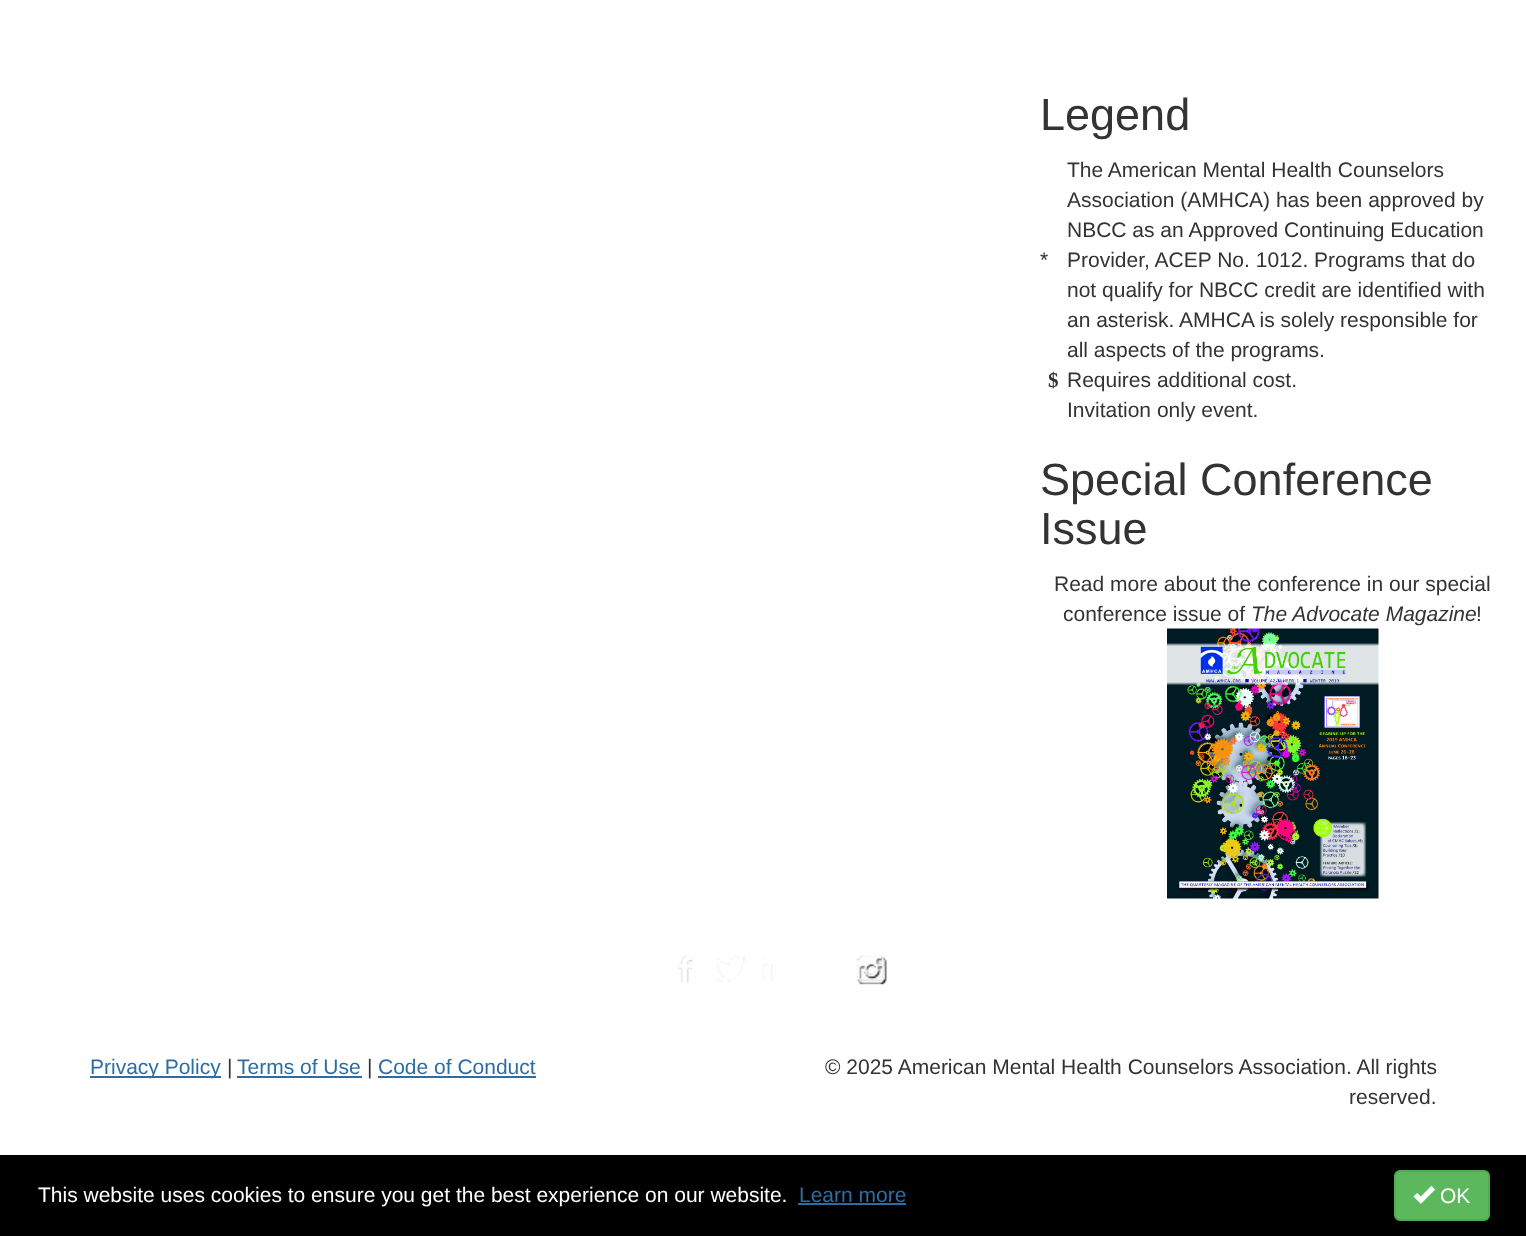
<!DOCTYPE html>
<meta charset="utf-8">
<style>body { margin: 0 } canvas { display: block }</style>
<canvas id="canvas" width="1526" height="1236"></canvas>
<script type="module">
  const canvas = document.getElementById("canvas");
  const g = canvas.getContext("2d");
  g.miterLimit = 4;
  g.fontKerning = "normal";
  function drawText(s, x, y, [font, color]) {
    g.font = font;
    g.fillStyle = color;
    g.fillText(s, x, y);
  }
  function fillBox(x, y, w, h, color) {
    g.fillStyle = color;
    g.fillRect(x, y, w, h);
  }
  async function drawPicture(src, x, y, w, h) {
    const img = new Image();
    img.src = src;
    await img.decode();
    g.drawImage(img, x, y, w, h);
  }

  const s1 = ["45px Liberation Sans", "#333333"];
  const s2 = ["21px Liberation Sans", "#333333"];
  const s3 = ["bold 21px Liberation Serif", "#333333"];
  const s4 = ["italic 21px Liberation Sans", "#333333"];
  const s5 = ["21px Liberation Sans", "#2E6DA4"];
  const s6 = ["21px Liberation Sans", "#FFFFFF"];

  fillBox(0, 0, 1526, 1236, "#FFFFFF");
  drawText("Legend", 1040, 130, s1);
  drawText("*", 1040, 267, s2);
  drawText("The American Mental Health Counselors", 1067, 177, s2);
  drawText("Association (AMHCA) has been approved by", 1067, 207, s2);
  drawText("NBCC as an Approved Continuing Education", 1067, 237, s2);
  drawText("Provider, ACEP No. 1012. Programs that do", 1067, 267, s2);
  drawText("not qualify for NBCC credit are identified with", 1067, 297, s2);
  drawText("an asterisk. AMHCA is solely responsible for", 1067, 327, s2);
  drawText("all aspects of the programs.", 1067, 357, s2);
  drawText("$", 1048, 387, s3);
  drawText("Requires additional cost.", 1067, 387, s2);
  drawText("Invitation only event.", 1067, 417, s2);
  drawText("Special Conference", 1040, 495, s1);
  drawText("Issue", 1040, 544, s1);
  drawText("Read more about the conference in our special", 1054, 591, s2);
  drawText("conference issue of", 1063, 621, s2);
  drawText("The Advocate Magazine", 1251, 621, s4);
  drawText("!", 1476, 621, s2);
  await drawPicture("pic1.png", 1167, 628, 212, 271);
  await drawPicture("pic2.png", 678, 955, 16, 28);
  await drawPicture("pic3.png", 715, 955, 31, 28);
  await drawPicture("pic4.png", 762, 956, 14, 26);
  await drawPicture("pic5.png", 856, 955, 31, 30);
  fillBox(90, 1076, 131, 2, "#2E6DA4");
  drawText("Privacy Policy", 90, 1074, s5);
  drawText("|", 227, 1074, s2);
  drawText("Terms of Use", 237, 1074, s5);
  fillBox(237, 1076, 125, 2, "#2E6DA4");
  drawText("|", 367, 1074, s2);
  drawText("Code of Conduct", 378, 1074, s5);
  fillBox(378, 1076, 158, 2, "#2E6DA4");
  drawText("© 2025 American Mental Health Counselors Association. All rights", 825, 1074, s2);
  drawText("reserved.", 1349, 1104, s2);
  fillBox(0, 1155, 1526, 81, "#000000");
  drawText("This website uses cookies to ensure you get the best experience on our website.", 38, 1202, s6);
  drawText("Learn more", 799, 1202, s5);
  fillBox(798, 1203, 108, 2, "#2E6DA4");
  g.fillStyle = "#5CB85C";
  g.beginPath();
  g.roundRect(1395, 1171, 94, 49, 5);
  g.fill();
  g.strokeStyle = "#4CAE4C";
  g.lineWidth = 2;
  g.stroke();
  await drawPicture("pic6.png", 1413, 1186, 22, 18);
  drawText("OK", 1440, 1203, s6);
</script>
